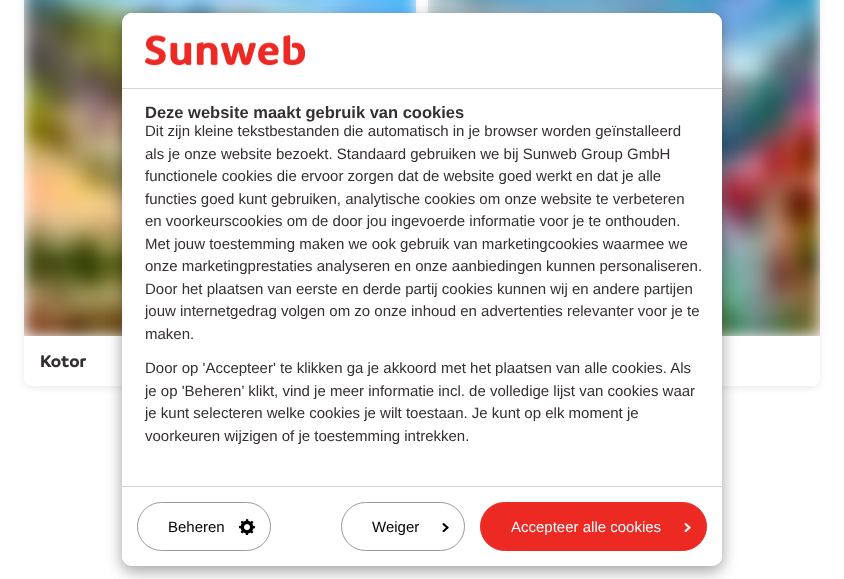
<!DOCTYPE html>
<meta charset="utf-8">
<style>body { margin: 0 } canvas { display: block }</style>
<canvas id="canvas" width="844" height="579"></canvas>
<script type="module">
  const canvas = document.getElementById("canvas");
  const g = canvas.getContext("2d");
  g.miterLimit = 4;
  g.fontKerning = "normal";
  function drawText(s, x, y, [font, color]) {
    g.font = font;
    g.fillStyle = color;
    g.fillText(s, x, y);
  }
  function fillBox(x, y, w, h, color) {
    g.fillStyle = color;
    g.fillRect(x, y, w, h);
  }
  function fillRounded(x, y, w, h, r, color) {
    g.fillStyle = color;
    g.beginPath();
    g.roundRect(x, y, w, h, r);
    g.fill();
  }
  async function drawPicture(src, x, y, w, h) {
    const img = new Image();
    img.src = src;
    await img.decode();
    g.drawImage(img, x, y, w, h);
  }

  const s1 = ["bold 18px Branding", "#362F2F"];
  const s2 = ["bold 16.5px Liberation Sans", "#362F2F"];
  const s3 = ["15px Liberation Sans", "#362F2F"];
  const s4 = ["15px Liberation Sans", "#000000"];
  const s5 = ["15px Liberation Sans", "#FFFFFF"];

  fillBox(0, 0, 844, 579, "#FFFFFF");
  g.save();
  g.beginPath();
  g.moveTo(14, 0);
  g.lineTo(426, 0);
  g.lineTo(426, 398);
  g.lineTo(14, 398);
  g.closePath();
  g.moveTo(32, -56);
  g.lineTo(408, -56);
  g.bezierCurveTo(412.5, -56, 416, -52.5, 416, -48);
  g.lineTo(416, 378);
  g.bezierCurveTo(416, 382.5, 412.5, 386, 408, 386);
  g.lineTo(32, 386);
  g.bezierCurveTo(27.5, 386, 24, 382.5, 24, 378);
  g.lineTo(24, -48);
  g.bezierCurveTo(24, -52.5, 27.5, -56, 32, -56);
  g.closePath();
  g.clip("evenodd");
  g.fillStyle = "rgba(0, 0, 0, 0.08)";
  g.filter = "blur(3px)";
  g.beginPath();
  g.roundRect(24, -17, 392, 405, 8);
  g.fill();
  g.filter = "none";
  g.restore();
  await drawPicture("pic1.png", 24, 0, 392, 336);
  g.beginPath();
  g.roundRect(24, 336, 392, 50, [0, 0, 8, 8]);
  g.fill();
  drawText("Kotor", 40, 367, s1);
  g.save();
  g.beginPath();
  g.moveTo(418, 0);
  g.lineTo(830, 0);
  g.lineTo(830, 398);
  g.lineTo(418, 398);
  g.closePath();
  g.moveTo(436, -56);
  g.lineTo(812, -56);
  g.bezierCurveTo(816.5, -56, 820, -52.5, 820, -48);
  g.lineTo(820, 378);
  g.bezierCurveTo(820, 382.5, 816.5, 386, 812, 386);
  g.lineTo(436, 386);
  g.bezierCurveTo(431.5, 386, 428, 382.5, 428, 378);
  g.lineTo(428, -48);
  g.bezierCurveTo(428, -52.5, 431.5, -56, 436, -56);
  g.closePath();
  g.clip("evenodd");
  g.fillStyle = "rgba(0, 0, 0, 0.08)";
  g.filter = "blur(3px)";
  g.beginPath();
  g.roundRect(428, -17, 392, 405, 8);
  g.fill();
  g.filter = "none";
  g.restore();
  await drawPicture("pic2.png", 428, 0, 392, 336);
  g.fillStyle = "#FFFFFF";
  g.beginPath();
  g.roundRect(428, 336, 392, 50, [0, 0, 8, 8]);
  g.fill();
  g.fillStyle = "rgba(0, 0, 0, 0.19)";
  g.filter = "blur(7.5px)";
  g.beginPath();
  g.roundRect(122, 18, 600, 553, 10);
  g.fill();
  g.filter = "none";
  g.fillStyle = "rgba(0, 0, 0, 0.2)";
  g.filter = "blur(7.5px)";
  g.beginPath();
  g.roundRect(122, 18, 600, 553, 10);
  g.fill();
  g.filter = "none";
  fillRounded(122, 13, 600, 553, 10, "#FFFFFF");
  g.beginPath();
  g.roundRect(122, 13, 600, 76, [10, 10, 0, 0]);
  g.fill();
  fillBox(122, 88, 600, 1, "#D6D6D6");
  await drawPicture("pic3.png", 145, 35, 160, 31);
  drawText("Deze website maakt gebruik van cookies", 145, 118, s2);
  drawText("Dit zijn kleine tekstbestanden die automatisch in je browser worden geïnstalleerd", 145, 136, s3);
  drawText("als je onze website bezoekt. Standaard gebruiken we bij Sunweb Group GmbH", 145, 159, s3);
  drawText("functionele cookies die ervoor zorgen dat de website goed werkt en dat je alle", 145, 181, s3);
  drawText("functies goed kunt gebruiken, analytische cookies om onze website te verbeteren", 145, 204, s3);
  drawText("en voorkeurscookies om de door jou ingevoerde informatie voor je te onthouden.", 145, 226, s3);
  drawText("Met jouw toestemming maken we ook gebruik van marketingcookies waarmee we", 145, 249, s3);
  drawText("onze marketingprestaties analyseren en onze aanbiedingen kunnen personaliseren.", 145, 271, s3);
  drawText("Door het plaatsen van eerste en derde partij cookies kunnen wij en andere partijen", 145, 294, s3);
  drawText("jouw internetgedrag volgen om zo onze inhoud en advertenties relevanter voor je te", 145, 316, s3);
  drawText("maken.", 145, 339, s3);
  drawText("Door op 'Accepteer' te klikken ga je akkoord met het plaatsen van alle cookies. Als", 145, 373, s3);
  drawText("je op 'Beheren’ klikt, vind je meer informatie incl. de volledige lijst van cookies waar", 145, 396, s3);
  drawText("je kunt selecteren welke cookies je wilt toestaan. Je kunt op elk moment je", 145, 418, s3);
  drawText("voorkeuren wijzigen of je toestemming intrekken.", 145, 441, s3);
  g.fillStyle = "#FFFFFF";
  g.beginPath();
  g.roundRect(122, 486, 600, 80, [0, 0, 10, 10]);
  g.fill();
  fillBox(122, 486, 600, 1, "#D6D6D6");
  g.beginPath();
  g.roundRect(137.5, 502.5, 133, 48, 24);
  g.strokeStyle = "#999999";
  g.stroke();
  drawText("Beheren", 168, 532, s4);
  await drawPicture("pic4.png", 239, 519, 16, 16);
  g.beginPath();
  g.roundRect(341.5, 502.5, 123, 48, 24);
  g.stroke();
  drawText("Weiger", 372, 532, s4);
  await drawPicture("pic5.png", 442, 523, 7, 9);
  g.fillStyle = "#ED2924";
  g.beginPath();
  g.roundRect(480.5, 502.5, 226, 48, 24);
  g.fill();
  g.strokeStyle = "#ED2924";
  g.stroke();
  drawText("Accepteer alle cookies", 511, 532, s5);
  await drawPicture("pic6.png", 684, 523, 7, 9);
</script>
